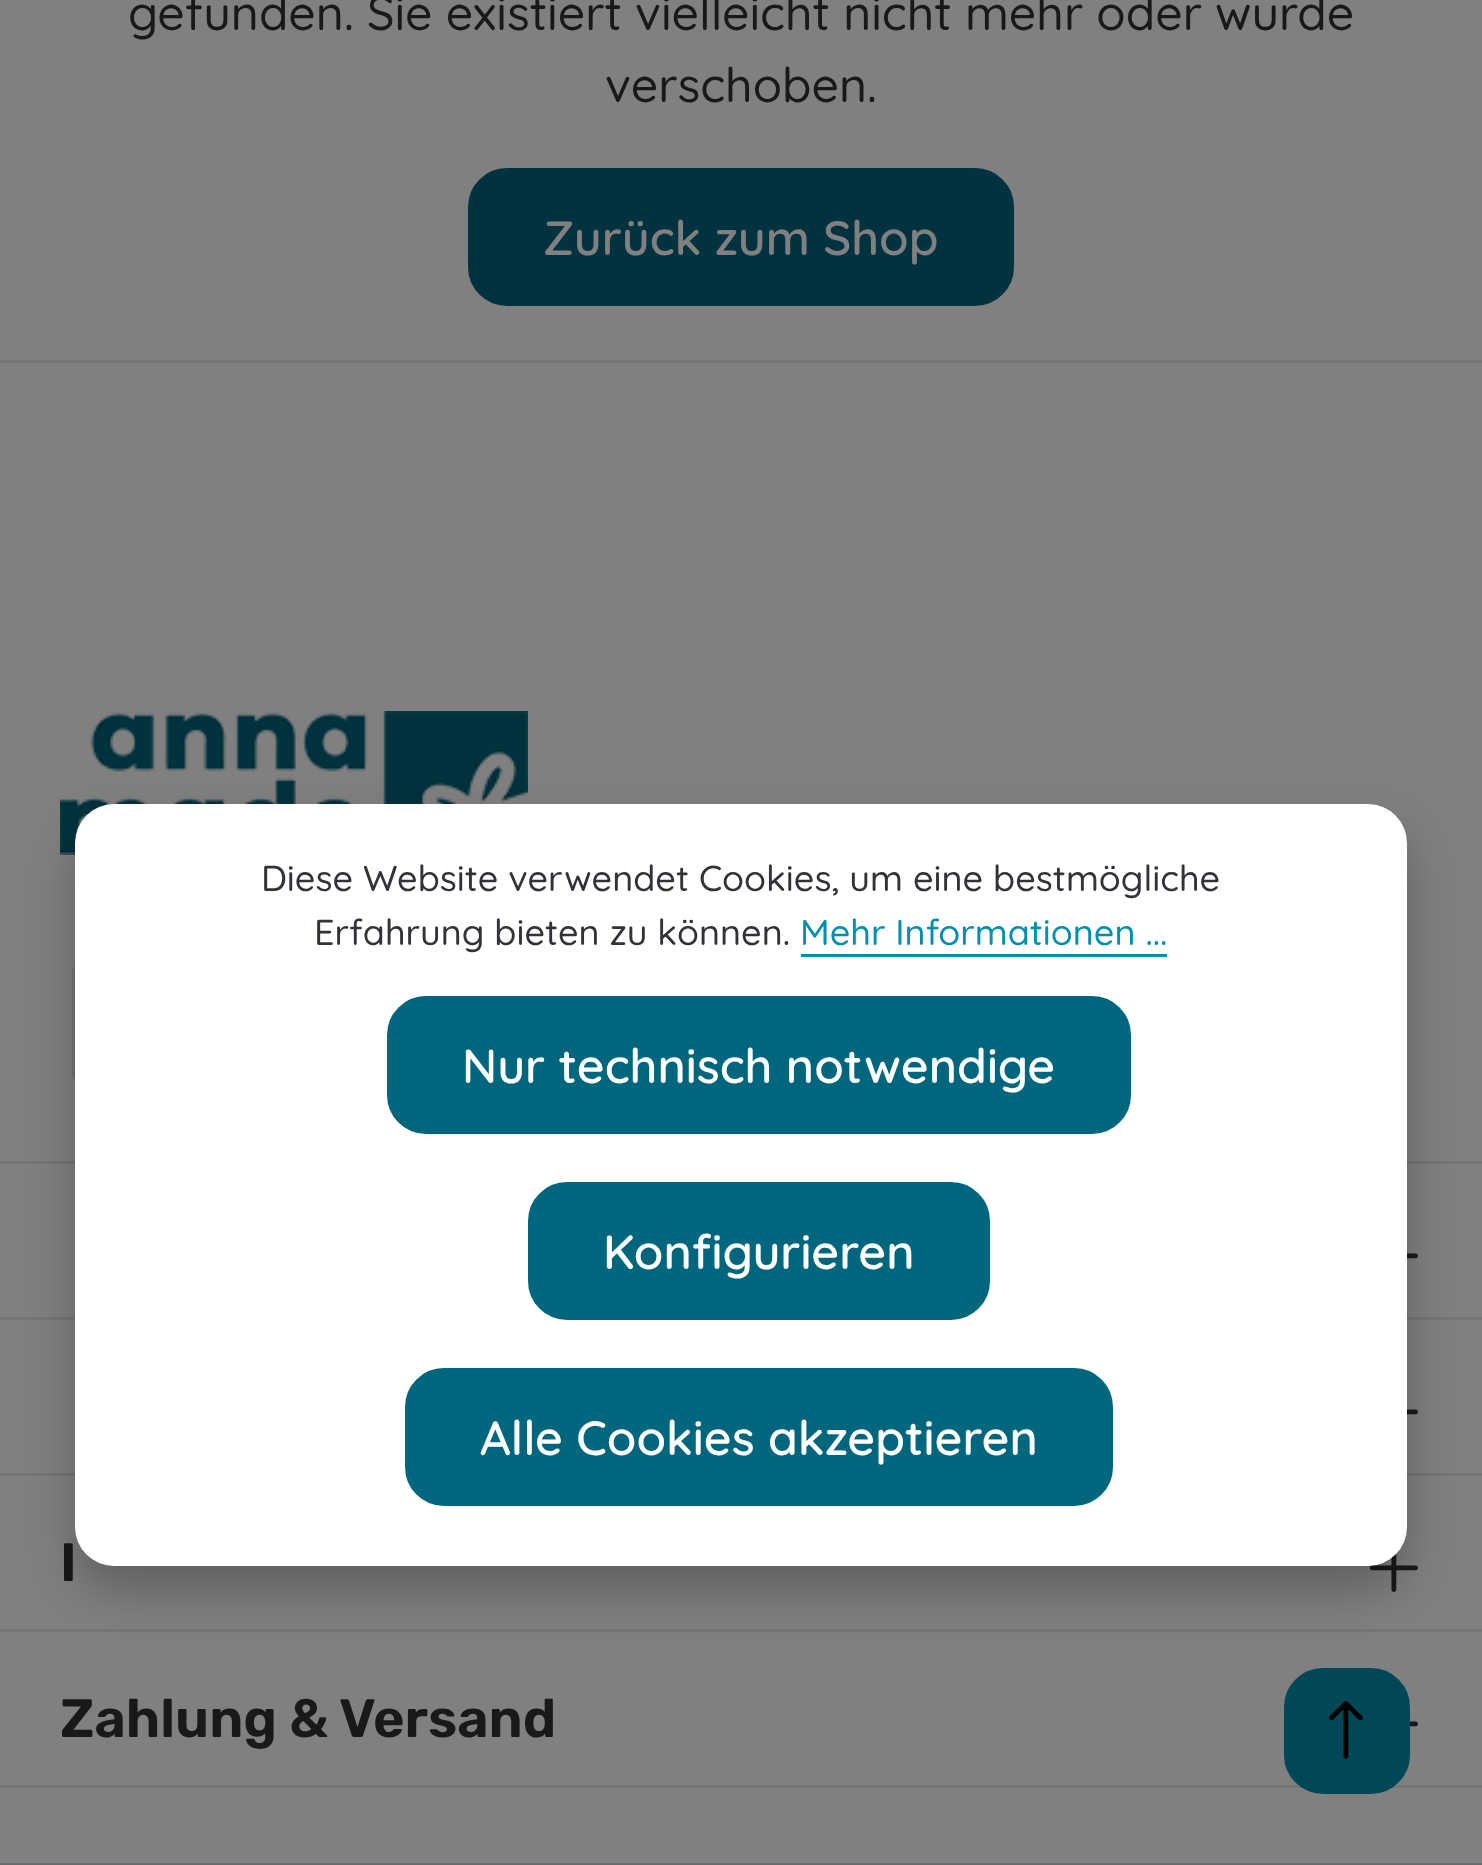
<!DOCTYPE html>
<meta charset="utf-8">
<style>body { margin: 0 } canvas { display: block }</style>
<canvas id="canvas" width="1482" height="1865"></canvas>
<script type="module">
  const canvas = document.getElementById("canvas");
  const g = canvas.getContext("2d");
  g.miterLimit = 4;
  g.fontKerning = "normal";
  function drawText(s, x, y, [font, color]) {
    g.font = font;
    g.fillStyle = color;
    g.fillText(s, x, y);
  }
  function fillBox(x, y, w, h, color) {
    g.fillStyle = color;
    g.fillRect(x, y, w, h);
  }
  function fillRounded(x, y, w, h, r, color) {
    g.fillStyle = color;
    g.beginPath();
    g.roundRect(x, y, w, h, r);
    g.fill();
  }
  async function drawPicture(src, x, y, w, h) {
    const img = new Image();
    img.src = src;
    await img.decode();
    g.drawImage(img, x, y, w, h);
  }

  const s1 = ["300 48px Quicksand", "#19191C"];
  const s2 = ["600 48px Quicksand", "#808080"];
  const s3 = ["600 54px Rubik", "#19191C"];
  const s4 = ["300 36px Quicksand", "#323238"];
  const s5 = ["300 36px Quicksand", "#008FAF"];
  const s6 = ["600 48px Quicksand", "#FFFFFF"];

  fillBox(0, 0, 1482, 1865, "#808080");
  drawText("gefunden. Sie existiert vielleicht nicht mehr oder wurde", 128, 30, s1);
  drawText("verschoben.", 605, 102, s1);
  g.fillStyle = "#00333F";
  g.beginPath();
  g.roundRect(469.5, 169.5, 543, 135, 37.5);
  g.fill();
  g.strokeStyle = "#00333F";
  g.lineWidth = 3;
  g.stroke();
  drawText("Zurück zum Shop", 543, 255, s2);
  fillBox(0, 360, 1482, 3, "#767575");
  fillBox(0, 1161, 1482, 3, "#767676");
  await drawPicture("pic1.png", 60, 711, 468, 144);
  fillRounded(72, 963, 120, 120, 9, "#767575");
  fillBox(0, 1317, 1482, 3, "#767676");
  await drawPicture("pic2.png", 1407, 1253, 11, 6);
  fillBox(0, 1473, 1482, 3, "#767676");
  await drawPicture("pic2.png", 1407, 1409, 11, 6);
  fillBox(0, 1629, 1482, 3, "#767676");
  drawText("I", 60, 1581, s3);
  await drawPicture("pic3.png", 1369, 1553, 49, 39);
  fillBox(0, 1785, 1482, 3, "#767676");
  drawText("Zahlung & Versand", 60, 1737, s3);
  await drawPicture("pic4.png", 1410, 1721, 8, 6);
  fillBox(0, 1863, 1482, 2, "#626F6E");
  g.fillStyle = "rgba(0, 0, 0, 0.25)";
  g.filter = "blur(24px)";
  g.beginPath();
  g.roundRect(75, 828, 1332, 762, 39);
  g.fill();
  g.filter = "none";
  fillRounded(75, 804, 1332, 762, 39, "#FFFFFF");
  drawText("Diese Website verwendet Cookies, um eine bestmögliche", 261, 891, s4);
  drawText("Erfahrung bieten zu können.", 314, 945, s4);
  drawText("Mehr Informationen ...", 800, 945, s5);
  fillBox(801, 954, 366, 3, "#008FAF");
  g.fillStyle = "#00667D";
  g.beginPath();
  g.roundRect(388.5, 997.5, 741, 135, 37.5);
  g.fill();
  g.strokeStyle = "#00667D";
  g.stroke();
  drawText("Nur technisch notwendige", 462, 1083, s6);
  g.fillStyle = "#00667D";
  g.beginPath();
  g.roundRect(529.5, 1183.5, 459, 135, 37.5);
  g.fill();
  g.stroke();
  drawText("Konfigurieren", 603, 1269, s6);
  g.fillStyle = "#00667D";
  g.beginPath();
  g.roundRect(406.5, 1369.5, 705, 135, 37.5);
  g.fill();
  g.stroke();
  drawText("Alle Cookies akzeptieren", 480, 1455, s6);
  g.fillStyle = "#004858";
  g.beginPath();
  g.roundRect(1285.5, 1669.5, 123, 123, 37.5);
  g.fill();
  g.strokeStyle = "#004858";
  g.stroke();
  await drawPicture("pic5.png", 1329, 1701, 34, 58);
</script>
